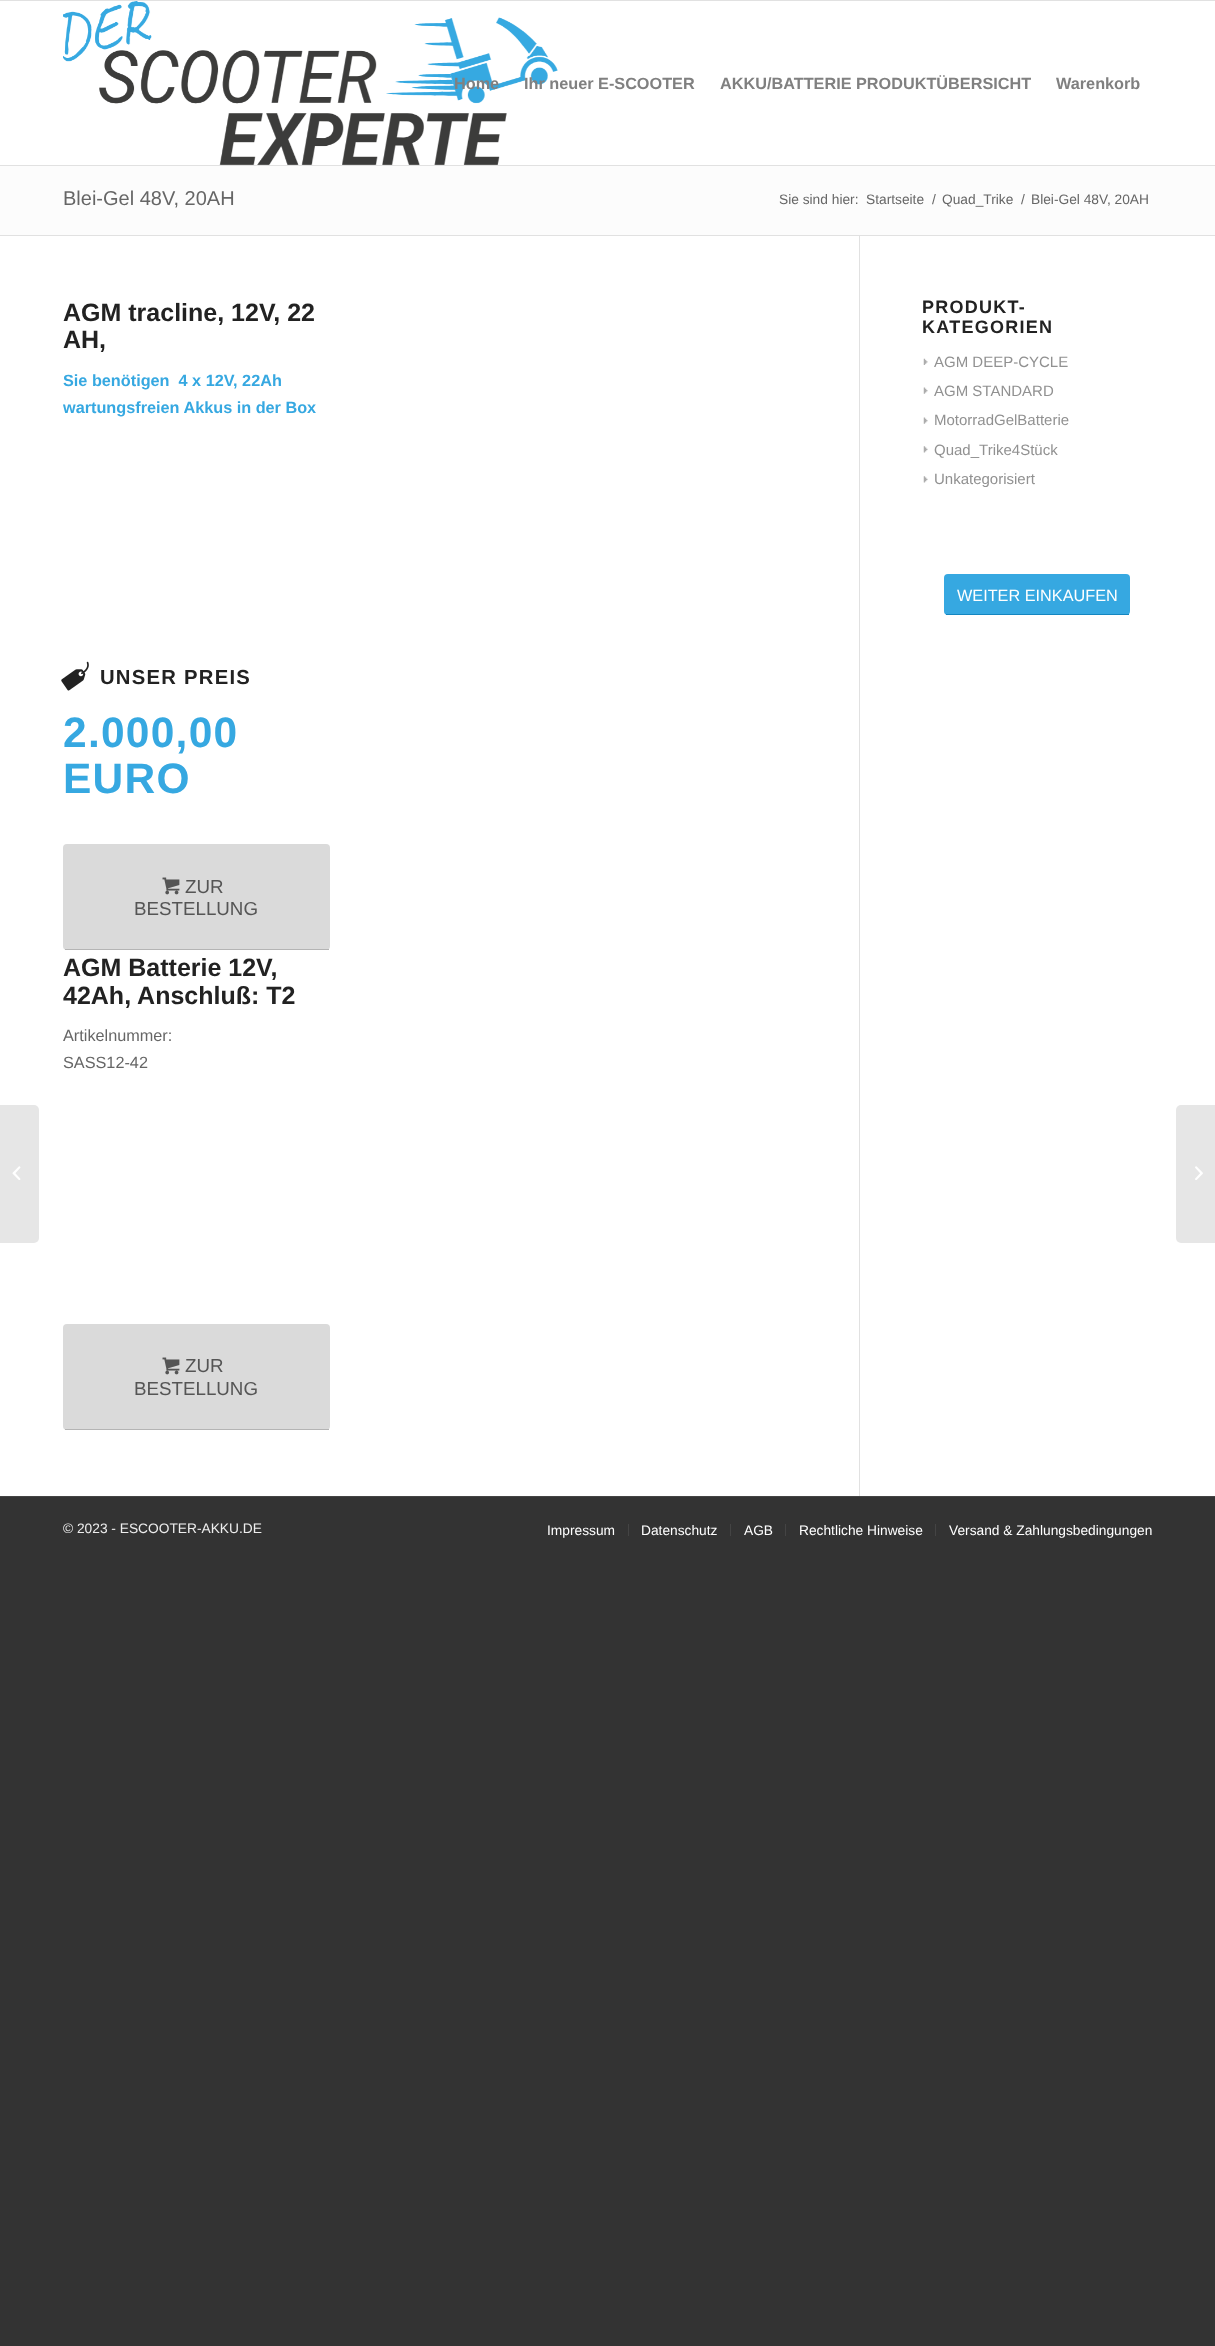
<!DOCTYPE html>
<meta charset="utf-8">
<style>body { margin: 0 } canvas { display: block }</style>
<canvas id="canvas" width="1215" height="2346"></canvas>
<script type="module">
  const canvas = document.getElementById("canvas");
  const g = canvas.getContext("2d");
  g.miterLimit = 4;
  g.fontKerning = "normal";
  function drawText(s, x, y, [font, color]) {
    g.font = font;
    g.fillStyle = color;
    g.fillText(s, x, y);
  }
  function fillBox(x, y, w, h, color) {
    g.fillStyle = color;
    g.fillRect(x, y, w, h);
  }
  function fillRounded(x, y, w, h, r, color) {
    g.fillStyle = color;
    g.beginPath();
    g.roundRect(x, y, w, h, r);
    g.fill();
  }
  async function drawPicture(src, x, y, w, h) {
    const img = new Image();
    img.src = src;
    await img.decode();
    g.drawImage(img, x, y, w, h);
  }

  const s1 = ["bold 16.25px Liberation Sans", "#808080"];
  const s2 = ["20px Liberation Sans", "#666666"];
  const s3 = ["13.75px Liberation Sans", "#666666"];
  const s4 = ["bold 25px Liberation Sans", "#222222"];
  const s5 = ["bold 16.25px Liberation Sans", "#36A8E1"];
  const s6 = ["bold 20.25px Liberation Sans", "#222222"];
  const s7 = ["bold 42.5px Liberation Sans", "#36A8E1"];
  const s8 = ["18.75px Liberation Sans", "#555555"];
  const s9 = ["16.25px Liberation Sans", "#666666"];
  const s10 = ["bold 18px Liberation Sans", "#222222"];
  const s11 = ["15px Liberation Sans", "#919191"];
  const s12 = ["16.25px Liberation Sans", "#FFFFFF"];
  const s13 = ["13.75px Liberation Sans", "#EEEEEE"];
  const s14 = ["13.75px Liberation Sans", "#FFFFFF"];

  fillBox(0, 0, 1215, 2346, "#333333");
  fillBox(0, 236, 1215, 1260, "#FFFFFF");
  fillBox(0, 1, 1215, 164, "#FFFFFF");
  fillBox(0, 0, 1215, 1, "#E1E1E1");
  fillBox(0, 165, 1215, 1, "#E1E1E1");
  await drawPicture("pic1.png", 63, 1, 495, 164);
  drawText("Home", 454, 89, s1);
  drawText("Ihr neuer E-SCOOTER", 524, 89, s1);
  drawText("AKKU/BATTERIE PRODUKTÜBERSICHT", 720, 89, s1);
  drawText("Warenkorb", 1056, 89, s1);
  g.fillStyle = "#E6E6E6";
  g.beginPath();
  g.roundRect(0, 1105, 39, 138, [0, 5, 5, 0]);
  g.fill();
  await drawPicture("pic2.png", 12, 1166, 9, 14);
  fillBox(0, 166, 1215, 69, "#FCFCFC");
  drawText("Blei-Gel 48V, 20AH", 63, 205, s2);
  drawText("Sie sind hier:", 779, 204, s3);
  drawText("Startseite", 866, 204, s3);
  drawText("/", 932, 204, s3);
  drawText("Quad_Trike", 942, 204, s3);
  drawText("/", 1021, 204, s3);
  drawText("Blei-Gel 48V, 20AH", 1031, 204, s3);
  fillBox(0, 235, 1215, 1, "#E1E1E1");
  fillBox(859, 236, 1, 1260, "#E1E1E1");
  drawText("AGM tracline, 12V, 22", 63, 321, s4);
  drawText("AH,", 63, 348, s4);
  drawText("Sie benötigen  4 x 12V, 22Ah", 63, 386, s5);
  drawText("wartungsfreien Akkus in der Box", 63, 413, s5);
  await drawPicture("pic3.png", 61, 661, 28, 30);
  g.letterSpacing = "1.25px";
  drawText("UNSER PREIS", 100, 684, s6);
  drawText("2.000,00", 63, 747, s7);
  drawText("EURO", 63, 793, s7);
  fillRounded(63, 844, 267, 106, 4, "#DADADA");
  fillBox(65, 949, 264, 1, "#B4B4B4");
  await drawPicture("pic4.png", 162, 877, 18, 18);
  g.letterSpacing = "0px";
  drawText("ZUR", 185, 893, s8);
  drawText("BESTELLUNG", 134, 915, s8);
  drawText("AGM Batterie 12V,", 63, 976, s4);
  drawText("42Ah, Anschluß: T2", 63, 1004, s4);
  drawText("Artikelnummer:", 63, 1041, s9);
  drawText("SASS12-42", 63, 1068, s9);
  fillRounded(63, 1324, 267, 106, 4, "#DADADA");
  fillBox(65, 1429, 264, 1, "#B4B4B4");
  await drawPicture("pic4.png", 162, 1357, 18, 18);
  drawText("ZUR", 185, 1372, s8);
  drawText("BESTELLUNG", 134, 1395, s8);
  g.letterSpacing = "1.25px";
  drawText("PRODUKT-", 922, 313, s10);
  drawText("KATEGORIEN", 922, 333, s10);
  await drawPicture("pic5.png", 923, 358, 5, 7);
  g.letterSpacing = "0px";
  drawText("AGM DEEP-CYCLE", 934, 367, s11);
  await drawPicture("pic6.png", 923, 387, 5, 7);
  drawText("AGM STANDARD", 934, 396, s11);
  await drawPicture("pic6.png", 923, 417, 5, 7);
  drawText("MotorradGelBatterie", 934, 425, s11);
  await drawPicture("pic7.png", 923, 446, 5, 7);
  drawText("Quad_Trike4Stück", 934, 455, s11);
  await drawPicture("pic7.png", 923, 476, 5, 7);
  drawText("Unkategorisiert", 934, 484, s11);
  fillRounded(944, 574, 186, 41, 4, "#36A8E1");
  fillBox(946, 614, 183, 1, "#1486C0");
  drawText("WEITER EINKAUFEN", 957, 601, s12);
  fillBox(0, 1496, 1215, 1, "#444444");
  drawText("© 2023 - ESCOOTER-AKKU.DE", 63, 1533, s13);
  drawText("Impressum", 547, 1535, s14);
  fillBox(628, 1524, 1, 12, "#444444");
  drawText("Datenschutz", 641, 1535, s14);
  fillBox(730, 1524, 1, 12, "#444444");
  drawText("AGB", 744, 1535, s14);
  fillBox(785, 1524, 1, 12, "#444444");
  drawText("Rechtliche Hinweise", 799, 1535, s14);
  fillBox(935, 1524, 1, 12, "#444444");
  drawText("Versand & Zahlungsbedingungen", 949, 1535, s14);
  g.fillStyle = "#E6E6E6";
  g.beginPath();
  g.roundRect(1176, 1105, 39, 138, [5, 0, 0, 5]);
  g.fill();
  await drawPicture("pic8.png", 1195, 1166, 8, 14);
</script>
